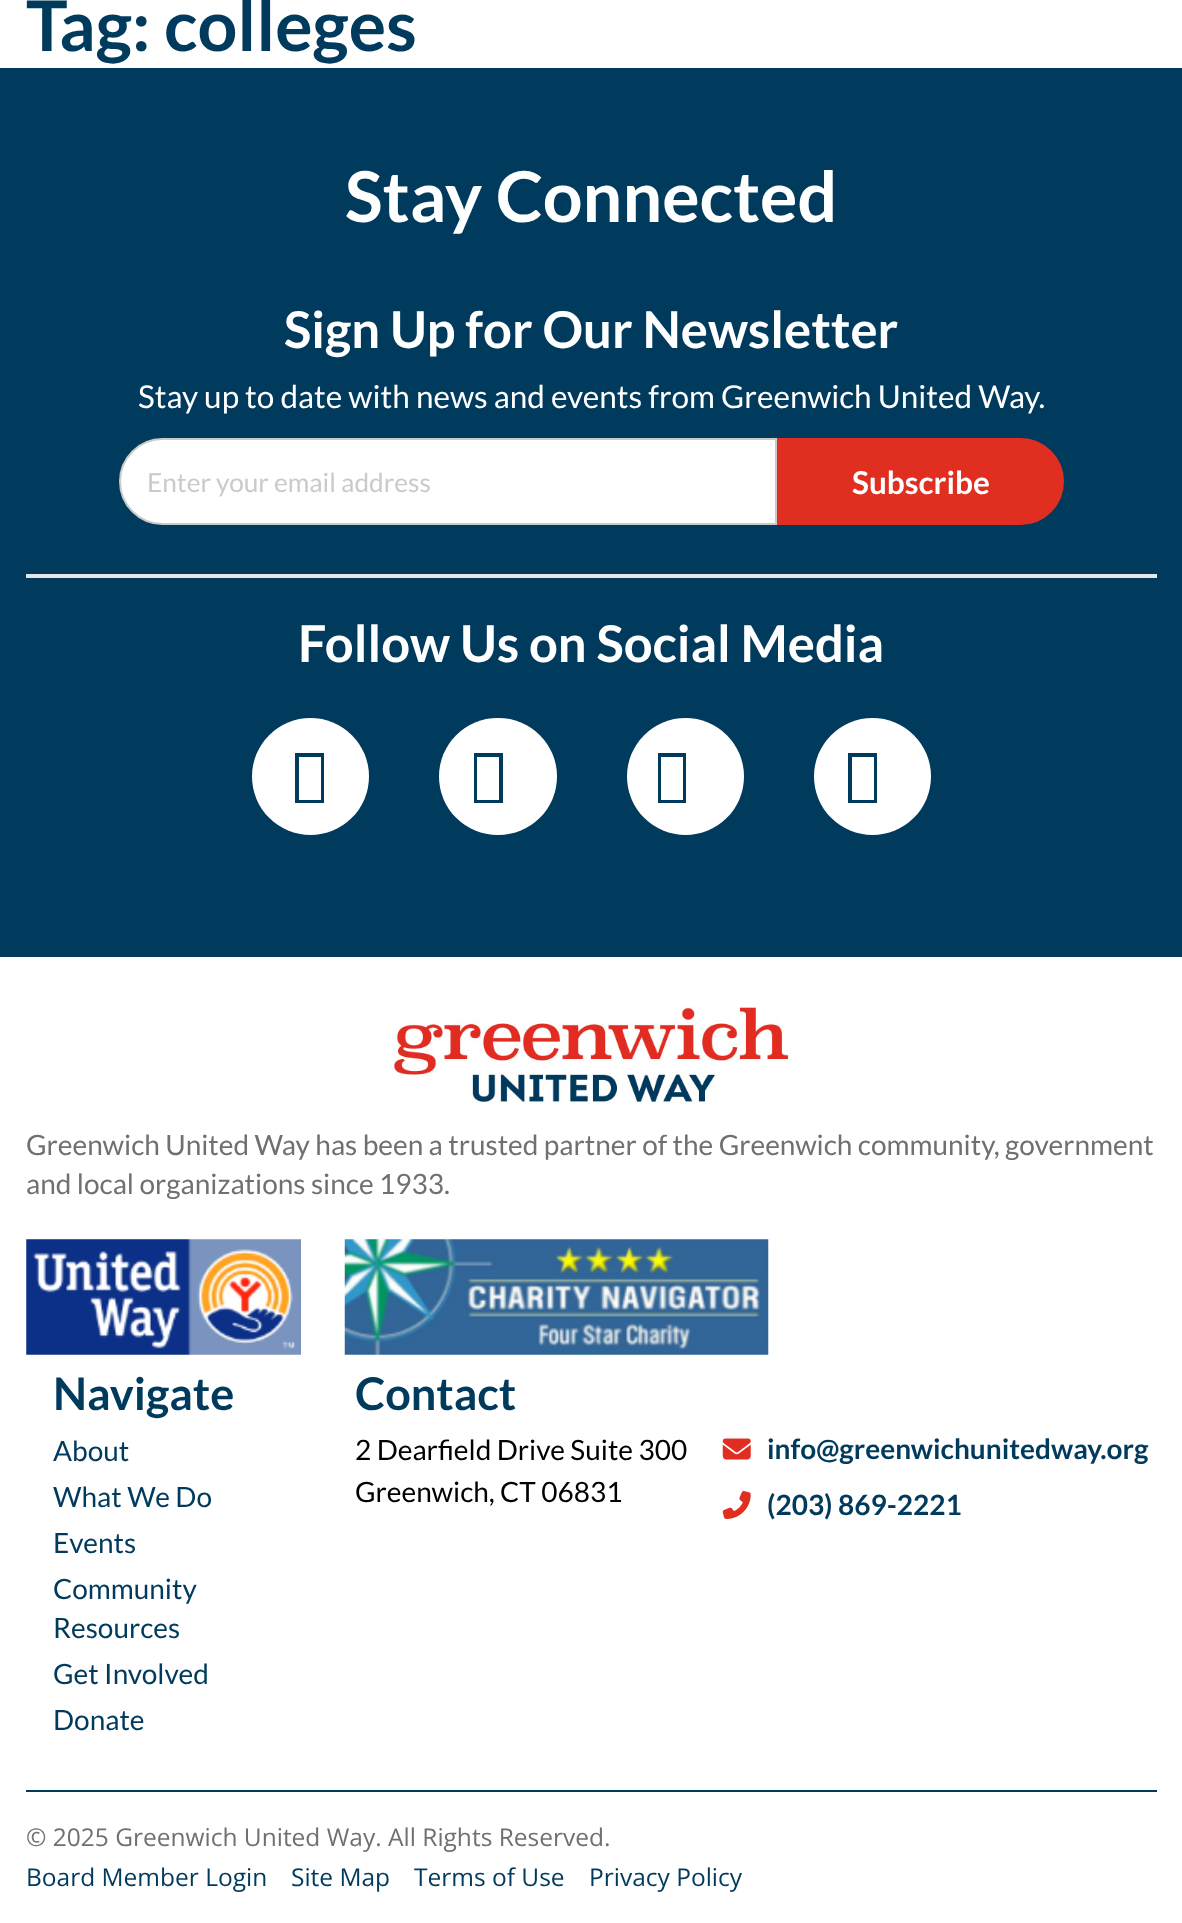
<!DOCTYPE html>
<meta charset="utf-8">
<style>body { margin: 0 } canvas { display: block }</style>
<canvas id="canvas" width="1182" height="1923"></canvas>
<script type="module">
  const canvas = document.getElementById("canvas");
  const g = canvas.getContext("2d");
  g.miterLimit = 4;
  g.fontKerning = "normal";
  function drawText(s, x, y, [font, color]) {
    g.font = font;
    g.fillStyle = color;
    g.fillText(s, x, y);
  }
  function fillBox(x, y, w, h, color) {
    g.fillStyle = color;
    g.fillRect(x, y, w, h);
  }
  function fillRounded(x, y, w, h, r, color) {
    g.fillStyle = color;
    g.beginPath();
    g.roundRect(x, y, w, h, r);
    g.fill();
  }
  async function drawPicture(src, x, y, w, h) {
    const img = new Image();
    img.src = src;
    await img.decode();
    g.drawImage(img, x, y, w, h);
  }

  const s1 = ["bold 70px Lato", "#003A5D"];
  const s2 = ["bold 70px Lato", "#FFFFFF"];
  const s3 = ["bold 50.75px Lato", "#FFFFFF"];
  const s4 = ["31.5px Lato", "#FFFFFF"];
  const s5 = ["26.25px Lato", "#CACACA"];
  const s6 = ["bold 31.5px Lato", "#FFFFFF"];
  const s7 = ["28px Lato", "#707070"];
  const s8 = ["bold 45px Lato", "#003A5D"];
  const s9 = ["28px Lato", "#003A5D"];
  const s10 = ["28px Lato", "#000000"];
  const s11 = ["bold 28px Lato", "#003A5D"];
  const s12 = ["24.5px Open Sans", "#707070"];
  const s13 = ["24.5px Open Sans", "#003A5D"];

  fillBox(0, 0, 1182, 1923, "#FFFFFF");
  drawText("Tag: colleges", 26, 51, s1);
  fillBox(0, 68, 1182, 889, "#003A5D");
  drawText("Stay Connected", 345, 222, s2);
  drawText("Sign Up for Our Newsletter", 284, 348, s3);
  drawText("Stay up to date with news and events from Greenwich United Way.", 138, 408, s4);
  g.beginPath();
  g.roundRect(120, 439, 656, 85, [42.5, 0, 0, 42.5]);
  g.fill();
  g.strokeStyle = "#CACACA";
  g.lineWidth = 2;
  g.stroke();
  drawText("Enter your email address", 147, 492, s5);
  g.fillStyle = "#E02E21";
  g.beginPath();
  g.roundRect(779, 440, 283, 83, [0, 41.5, 41.5, 0]);
  g.fill();
  g.strokeStyle = "#E02E21";
  g.lineWidth = 4;
  g.stroke();
  drawText("Subscribe", 852, 494, s6);
  fillBox(26, 574, 1131, 4, "#E6E6E6");
  drawText("Follow Us on Social Media", 298, 662, s3);
  g.beginPath();
  g.arc(310.5, 776.5, 58.5, 0, Math.PI * 2);
  g.fill();
  g.fillStyle = "#003A5D";
  g.beginPath();
  g.moveTo(295, 803);
  g.lineTo(295, 753);
  g.lineTo(324, 753);
  g.lineTo(324, 803);
  g.closePath();
  g.moveTo(299, 800);
  g.lineTo(321, 800);
  g.lineTo(321, 757);
  g.lineTo(299, 757);
  g.closePath();
  g.fill();
  fillRounded(439, 718, 118, 117, 58.5, "#FFFFFF");
  g.fillStyle = "#003A5D";
  g.beginPath();
  g.moveTo(474, 803);
  g.lineTo(474, 753);
  g.lineTo(503, 753);
  g.lineTo(503, 803);
  g.closePath();
  g.moveTo(477, 800);
  g.lineTo(499, 800);
  g.lineTo(499, 757);
  g.lineTo(477, 757);
  g.closePath();
  g.fill();
  g.fillStyle = "#FFFFFF";
  g.beginPath();
  g.arc(685.5, 776.5, 58.5, 0, Math.PI * 2);
  g.fill();
  g.fillStyle = "#003A5D";
  g.beginPath();
  g.moveTo(658, 803);
  g.lineTo(658, 753);
  g.lineTo(686, 753);
  g.lineTo(686, 803);
  g.closePath();
  g.moveTo(661, 800);
  g.lineTo(683, 800);
  g.lineTo(683, 757);
  g.lineTo(661, 757);
  g.closePath();
  g.fill();
  g.fillStyle = "#FFFFFF";
  g.beginPath();
  g.arc(872.5, 776.5, 58.5, 0, Math.PI * 2);
  g.fill();
  g.fillStyle = "#003A5D";
  g.beginPath();
  g.moveTo(848, 803);
  g.lineTo(848, 753);
  g.lineTo(877, 753);
  g.lineTo(877, 803);
  g.closePath();
  g.moveTo(852, 800);
  g.lineTo(874, 800);
  g.lineTo(874, 757);
  g.lineTo(852, 757);
  g.closePath();
  g.fill();
  await drawPicture("pic1.png", 391, 1007, 400, 96);
  drawText("Greenwich United Way has been a trusted partner of the Greenwich community, government", 26, 1155, s7);
  drawText("and local organizations since 1933.", 26, 1194, s7);
  await drawPicture("pic2.png", 26, 1239, 275, 116);
  await drawPicture("pic3.png", 344, 1239, 425, 116);
  drawText("Navigate", 53, 1410, s8);
  drawText("About", 53, 1461, s9);
  drawText("What We Do", 53, 1507, s9);
  drawText("Events", 53, 1553, s9);
  drawText("Community", 53, 1599, s9);
  drawText("Resources", 53, 1638, s9);
  drawText("Get Involved", 53, 1684, s9);
  drawText("Donate", 53, 1730, s9);
  drawText("Contact", 355, 1410, s8);
  drawText("2 Dearfield Drive Suite 300", 355, 1460, s10);
  drawText("Greenwich, CT 06831", 355, 1502, s10);
  await drawPicture("pic4.png", 722, 1438, 29, 22);
  drawText("info@greenwichunitedway.org", 767, 1459, s11);
  await drawPicture("pic5.png", 722, 1491, 29, 28);
  drawText("(203) 869-2221", 767, 1515, s11);
  fillBox(26, 1790, 1131, 2, "#003A5D");
  drawText("© 2025 Greenwich United Way. All Rights Reserved.", 26, 1846, s12);
  drawText("Board Member Login", 26, 1886, s13);
  drawText("Site Map", 291, 1886, s13);
  drawText("Terms of Use", 414, 1886, s13);
  drawText("Privacy Policy", 589, 1886, s13);
</script>
